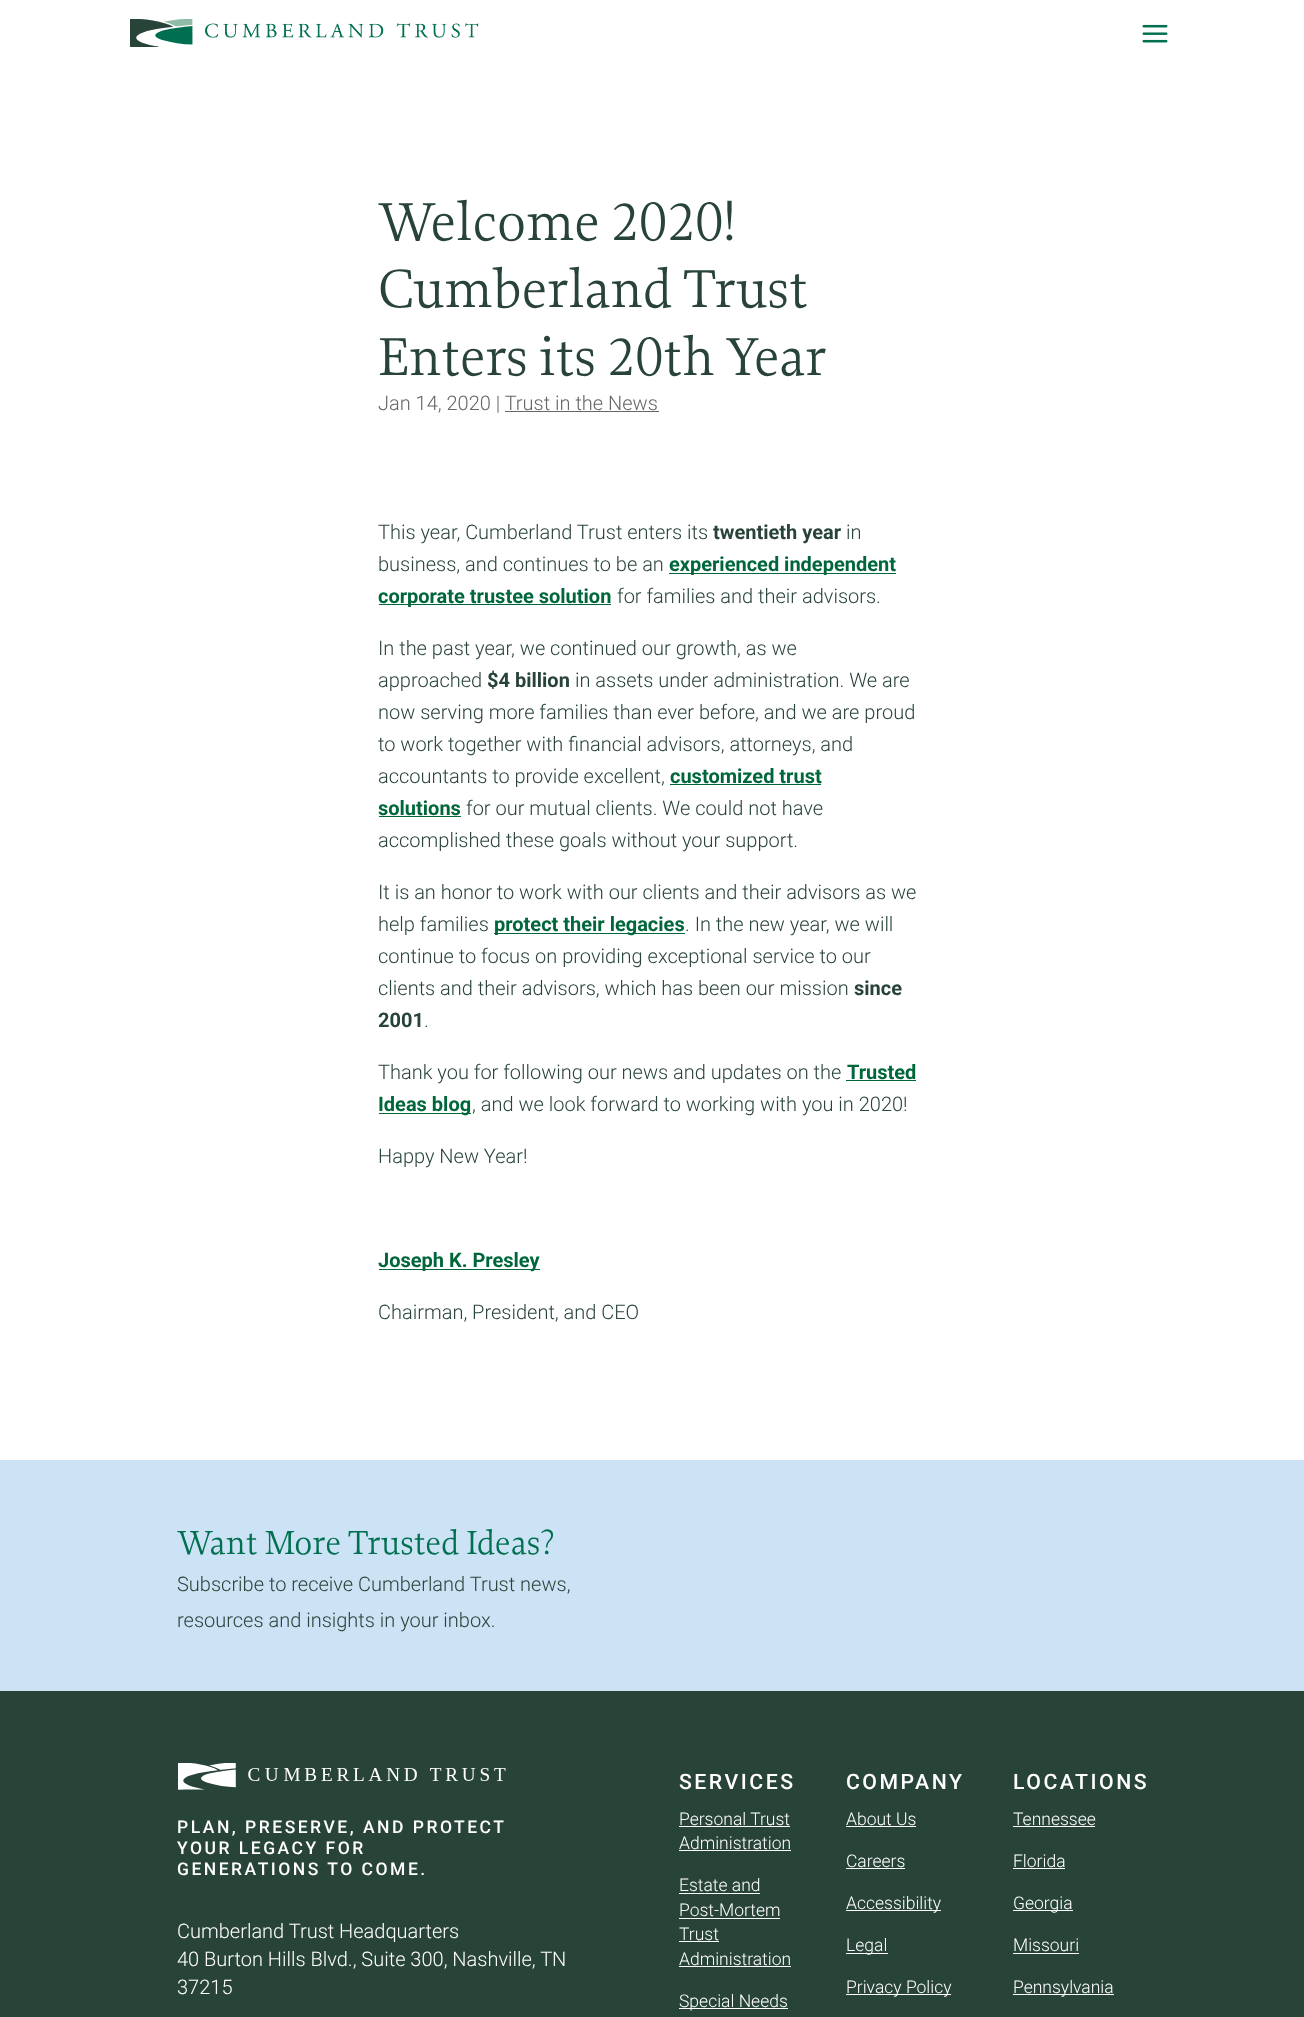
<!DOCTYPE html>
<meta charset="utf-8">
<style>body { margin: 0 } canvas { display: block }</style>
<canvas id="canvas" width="1304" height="2017"></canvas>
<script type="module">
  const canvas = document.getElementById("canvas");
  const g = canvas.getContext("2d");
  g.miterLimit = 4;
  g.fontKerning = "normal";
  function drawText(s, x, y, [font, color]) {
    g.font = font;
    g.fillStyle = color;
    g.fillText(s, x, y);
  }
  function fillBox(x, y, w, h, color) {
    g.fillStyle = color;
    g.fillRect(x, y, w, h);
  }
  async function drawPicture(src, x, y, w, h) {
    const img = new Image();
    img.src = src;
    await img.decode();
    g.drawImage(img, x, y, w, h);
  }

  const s1 = ["56.25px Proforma", "#284338"];
  const s2 = ["300 20px Roboto", "#666666"];
  const s3 = ["300 20px Roboto", "#284338"];
  const s4 = ["bold 20px Roboto", "#284338"];
  const s5 = ["bold 20px Roboto", "#00673A"];
  const s6 = ["35px Proforma", "#007050"];
  const s7 = ["500 17.5px Roboto", "#FFFFFF"];
  const s8 = ["300 20px Roboto", "#FFFFFF"];
  const s9 = ["500 21.25px Roboto", "#FFFFFF"];
  const s10 = ["300 17.5px Roboto", "#FFFFFF"];

  fillBox(0, 0, 1304, 2017, "#FFFFFF");
  await drawPicture("pic1.png", 130, 19, 349, 28);
  await drawPicture("pic2.png", 1142, 24, 26, 19);
  drawText("Welcome 2020!", 378, 240, s1);
  drawText("Cumberland Trust", 378, 307, s1);
  drawText("Enters its 20th Year", 378, 375, s1);
  drawText("Jan 14, 2020 | Trust in the News", 378, 410, s2);
  fillBox(505, 411, 154, 1, "#666666");
  drawText("This year, Cumberland Trust enters its", 378, 539, s3);
  drawText("twentieth year", 713, 539, s4);
  drawText("in", 846, 539, s3);
  drawText("business, and continues to be an", 378, 571, s3);
  fillBox(669, 573, 227, 1, "#00673A");
  drawText("experienced independent", 669, 571, s5);
  fillBox(379, 604, 232, 1, "#00673A");
  drawText("corporate trustee solution", 378, 603, s5);
  drawText("for families and their advisors.", 617, 603, s3);
  drawText("In the past year, we continued our growth, as we", 378, 655, s3);
  drawText("approached", 378, 687, s3);
  drawText("$4 billion", 487, 687, s4);
  drawText("in assets under administration. We are", 575, 687, s3);
  drawText("now serving more families than ever before, and we are proud", 378, 719, s3);
  drawText("to work together with financial advisors, attorneys, and", 378, 751, s3);
  drawText("accountants to provide excellent,", 378, 783, s3);
  drawText("customized trust", 670, 783, s5);
  fillBox(670, 784, 151, 1, "#00673A");
  drawText("solutions", 378, 815, s5);
  fillBox(379, 816, 82, 1, "#00673A");
  drawText("for our mutual clients. We could not have", 466, 815, s3);
  drawText("accomplished these goals without your support.", 378, 847, s3);
  drawText("It is an honor to work with our clients and their advisors as we", 378, 899, s3);
  drawText("help families", 378, 931, s3);
  fillBox(494, 933, 191, 1, "#00673A");
  drawText("protect their legacies", 494, 931, s5);
  drawText(". In the new year, we will", 685, 931, s3);
  drawText("continue to focus on providing exceptional service to our", 378, 963, s3);
  drawText("clients and their advisors, which has been our mission", 378, 995, s3);
  drawText("since", 854, 995, s4);
  drawText("2001", 378, 1027, s4);
  drawText(".", 424, 1027, s3);
  drawText("Thank you for following our news and updates on the", 378, 1079, s3);
  drawText("Trusted", 847, 1079, s5);
  fillBox(846, 1080, 70, 1, "#00673A");
  fillBox(379, 1113, 92, 1, "#00673A");
  drawText("Ideas blog", 378, 1111, s5);
  drawText(", and we look forward to working with you in 2020!", 472, 1111, s3);
  drawText("Happy New Year!", 378, 1163, s3);
  fillBox(379, 1269, 161, 1, "#00673A");
  drawText("Joseph K. Presley", 378, 1267, s5);
  drawText("Chairman, President, and CEO", 378, 1319, s3);
  fillBox(0, 1460, 1304, 231, "#CCE2F5");
  drawText("Want More Trusted Ideas?", 177, 1554, s6);
  drawText("Subscribe to receive Cumberland Trust news,", 177, 1591, s3);
  drawText("resources and insights in your inbox.", 177, 1627, s3);
  fillBox(0, 1691, 1304, 326, "#284338");
  await drawPicture("pic3.png", 178, 1763, 328, 27);
  g.letterSpacing = "2.5px";
  drawText("PLAN, PRESERVE, AND PROTECT", 177, 1833, s7);
  drawText("YOUR LEGACY FOR", 177, 1854, s7);
  drawText("GENERATIONS TO COME.", 177, 1875, s7);
  g.letterSpacing = "0px";
  drawText("Cumberland Trust Headquarters", 177, 1938, s8);
  drawText("40 Burton Hills Blvd., Suite 300, Nashville, TN", 177, 1966, s8);
  drawText("37215", 177, 1994, s8);
  g.letterSpacing = "2.5px";
  drawText("SERVICES", 679, 1789, s9);
  g.letterSpacing = "0px";
  drawText("Personal Trust", 679, 1825, s10);
  fillBox(679, 1826, 111, 1, "#FFFFFF");
  drawText("Administration", 679, 1849, s10);
  fillBox(679, 1850, 112, 1, "#FFFFFF");
  drawText("Estate and", 679, 1891, s10);
  fillBox(679, 1893, 81, 1, "#FFFFFF");
  drawText("Post-Mortem", 679, 1916, s10);
  fillBox(679, 1918, 101, 1, "#FFFFFF");
  drawText("Trust", 679, 1940, s10);
  fillBox(679, 1941, 40, 1, "#FFFFFF");
  drawText("Administration", 679, 1965, s10);
  fillBox(679, 1966, 112, 1, "#FFFFFF");
  fillBox(679, 2008, 109, 1, "#FFFFFF");
  drawText("Special Needs", 679, 2007, s10);
  g.letterSpacing = "2.5px";
  drawText("COMPANY", 846, 1789, s9);
  g.letterSpacing = "0px";
  drawText("About Us", 846, 1825, s10);
  fillBox(846, 1826, 70, 1, "#FFFFFF");
  drawText("Careers", 846, 1867, s10);
  fillBox(846, 1868, 59, 1, "#FFFFFF");
  fillBox(846, 1910, 95, 1, "#FFFFFF");
  drawText("Accessibility", 846, 1909, s10);
  fillBox(846, 1953, 42, 1, "#FFFFFF");
  drawText("Legal", 846, 1951, s10);
  fillBox(846, 1994, 105, 1, "#FFFFFF");
  drawText("Privacy Policy", 846, 1993, s10);
  g.letterSpacing = "2.5px";
  drawText("LOCATIONS", 1013, 1789, s9);
  g.letterSpacing = "0px";
  drawText("Tennessee", 1013, 1825, s10);
  fillBox(1013, 1826, 82, 1, "#FFFFFF");
  drawText("Florida", 1013, 1867, s10);
  fillBox(1013, 1868, 52, 1, "#FFFFFF");
  fillBox(1013, 1910, 60, 1, "#FFFFFF");
  drawText("Georgia", 1013, 1909, s10);
  drawText("Missouri", 1013, 1951, s10);
  fillBox(1013, 1953, 66, 1, "#FFFFFF");
  fillBox(1013, 1994, 101, 1, "#FFFFFF");
  drawText("Pennsylvania", 1013, 1993, s10);
</script>
